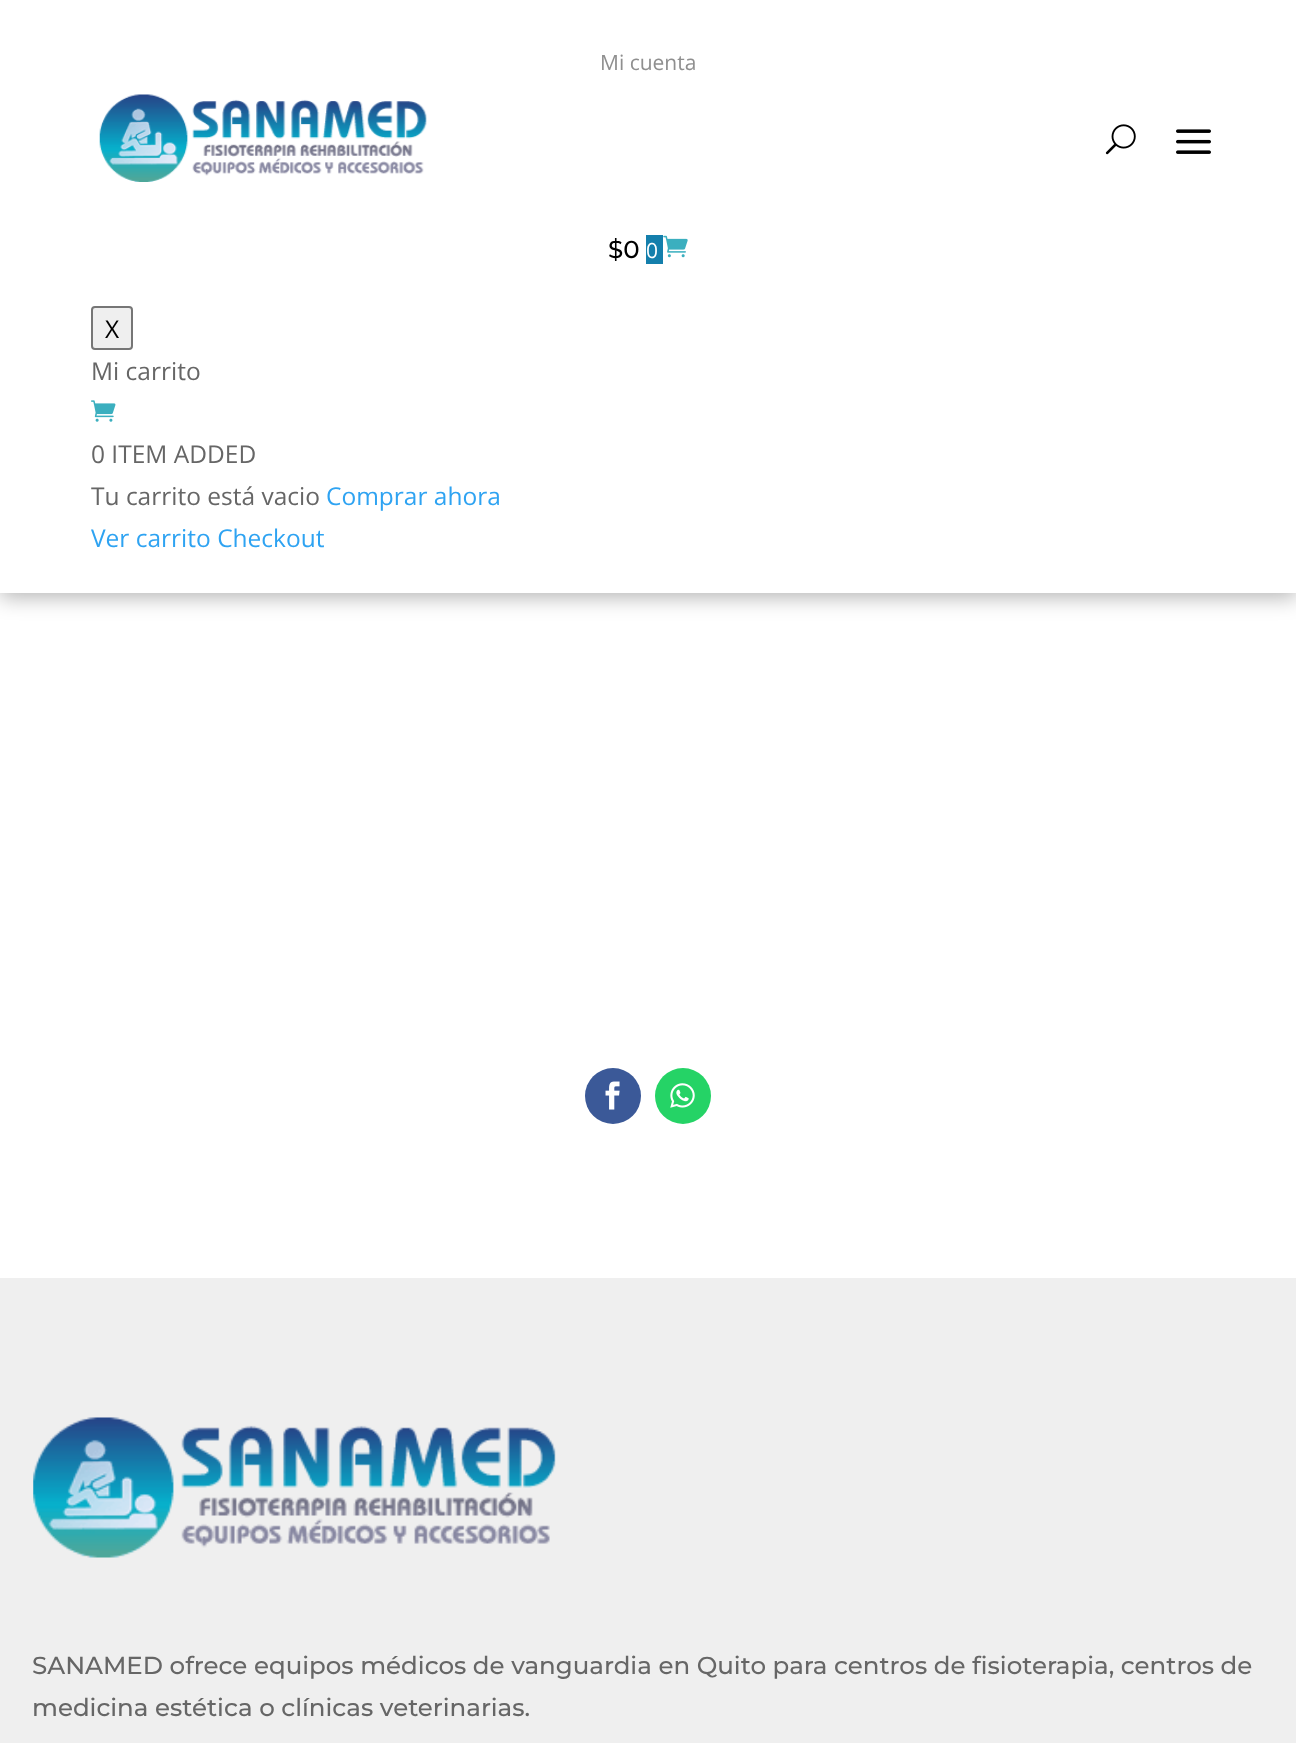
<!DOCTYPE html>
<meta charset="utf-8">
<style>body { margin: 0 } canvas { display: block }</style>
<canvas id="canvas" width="1296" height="1743"></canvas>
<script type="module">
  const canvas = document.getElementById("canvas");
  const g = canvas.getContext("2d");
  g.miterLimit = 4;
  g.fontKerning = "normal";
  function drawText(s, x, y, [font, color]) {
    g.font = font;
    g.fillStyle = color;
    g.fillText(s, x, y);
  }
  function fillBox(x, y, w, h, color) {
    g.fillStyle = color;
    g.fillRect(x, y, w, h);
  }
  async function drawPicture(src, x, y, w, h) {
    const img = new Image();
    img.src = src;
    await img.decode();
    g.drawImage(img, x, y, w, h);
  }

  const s1 = ["21px Open Sans", "#8F8F8F"];
  const s2 = ["500 24.5px Montserrat", "#000000"];
  const s3 = ["21px Open Sans", "#FFFFFF"];
  const s4 = ["24.5px Open Sans", "#000000"];
  const s5 = ["24.5px Open Sans", "#666666"];
  const s6 = ["24.5px Open Sans", "#2EA3F2"];
  const s7 = ["500 24.5px Montserrat", "#666666"];

  fillBox(0, 0, 1296, 1743, "#FFFFFF");
  g.fillStyle = "rgba(0, 0, 0, 0.3)";
  g.filter = "blur(10.5px)";
  g.beginPath();
  g.rect(0, 4, 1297, 593);
  g.fill();
  g.filter = "none";
  fillBox(0, 0, 1296, 593, "#FFFFFF");
  drawText("Mi cuenta", 600, 70, s1);
  await drawPicture("pic1.png", 99, 94, 328, 88);
  await drawPicture("pic2.png", 1105, 124, 31, 31);
  await drawPicture("pic3.png", 1176, 129, 35, 25);
  drawText("$0", 608, 258, s2);
  fillBox(646, 235, 17, 29, "#147FAC");
  drawText("0", 646, 258, s3);
  await drawPicture("pic4.png", 663, 235, 25, 23);
  g.fillStyle = "#EFEFEF";
  g.beginPath();
  g.roundRect(92, 307, 40, 42, 3);
  g.fill();
  g.strokeStyle = "#767676";
  g.lineWidth = 2;
  g.stroke();
  drawText("X", 105, 338, s4);
  drawText("Mi carrito", 91, 380, s5);
  await drawPicture("pic5.png", 91, 400, 25, 22);
  drawText("0 ITEM ADDED", 91, 463, s5);
  drawText("Tu carrito está vacio", 91, 505, s5);
  drawText("Comprar ahora", 326, 505, s6);
  drawText("Ver carrito Checkout", 91, 547, s6);
  g.fillStyle = "#3B5998";
  g.beginPath();
  g.arc(613, 1096, 28, 0, Math.PI * 2);
  g.fill();
  await drawPicture("pic6.png", 605, 1081, 15, 29);
  g.fillStyle = "#25D366";
  g.beginPath();
  g.arc(683, 1096, 28, 0, Math.PI * 2);
  g.fill();
  await drawPicture("pic7.png", 670, 1083, 25, 25);
  fillBox(0, 1278, 1296, 465, "#EFEFEF");
  await drawPicture("pic8.png", 33, 1417, 523, 141);
  drawText("SANAMED ofrece equipos médicos de vanguardia en Quito para centros de fisioterapia, centros de", 32, 1674, s7);
  drawText("medicina estética o clínicas veterinarias.", 32, 1716, s7);
</script>
